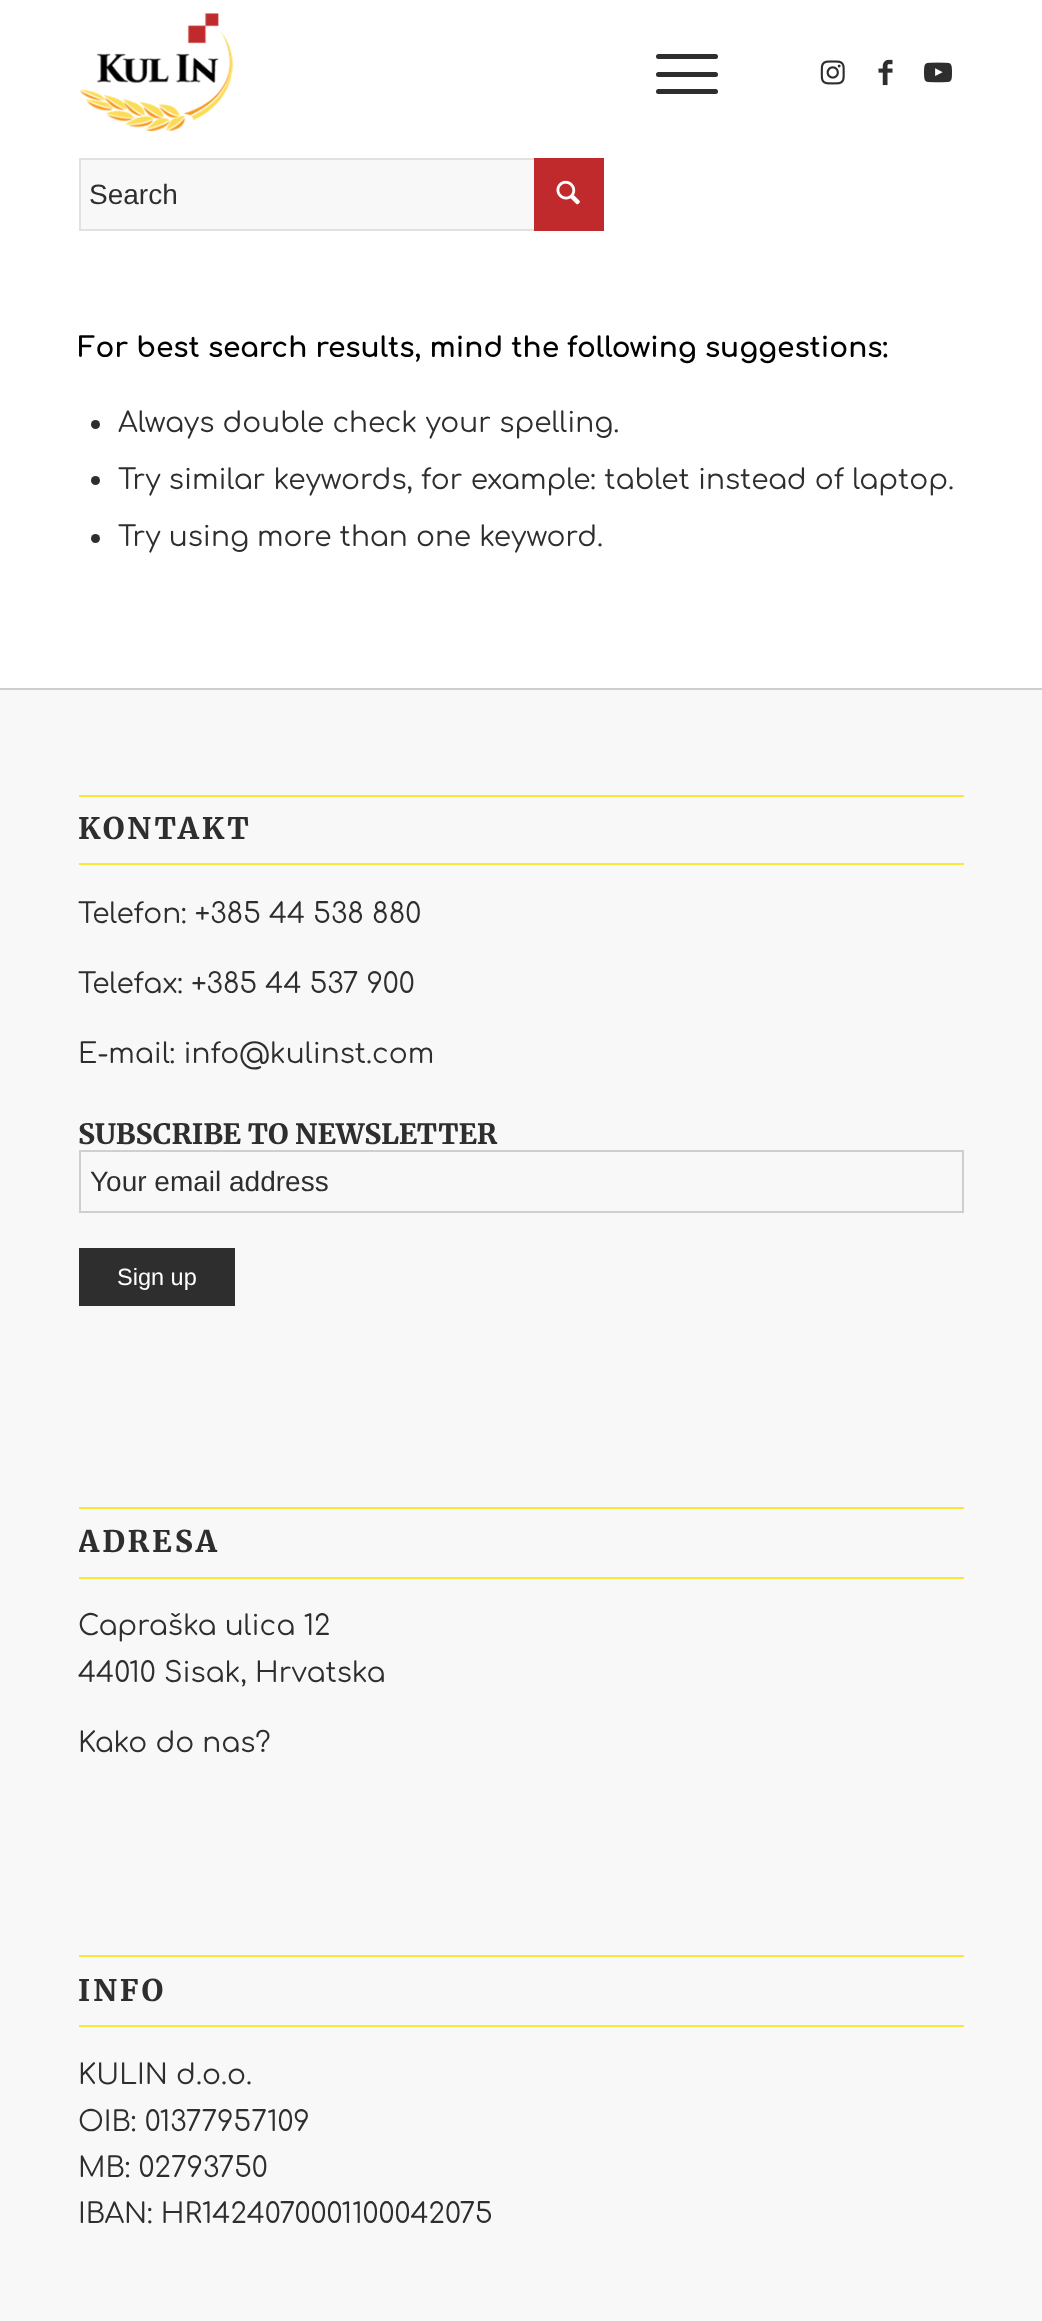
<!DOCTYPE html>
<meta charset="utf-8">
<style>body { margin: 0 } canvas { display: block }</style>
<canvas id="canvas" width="1042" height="2321"></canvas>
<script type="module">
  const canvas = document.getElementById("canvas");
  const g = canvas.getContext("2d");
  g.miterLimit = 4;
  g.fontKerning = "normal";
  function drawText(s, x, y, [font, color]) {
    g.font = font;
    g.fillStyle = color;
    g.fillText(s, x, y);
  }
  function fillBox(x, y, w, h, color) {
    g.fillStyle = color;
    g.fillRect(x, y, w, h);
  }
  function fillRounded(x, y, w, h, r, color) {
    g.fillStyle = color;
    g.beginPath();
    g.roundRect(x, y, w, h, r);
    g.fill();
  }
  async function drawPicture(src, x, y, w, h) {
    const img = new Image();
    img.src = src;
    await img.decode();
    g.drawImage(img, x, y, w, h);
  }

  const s1 = ["28px Liberation Sans", "#2E2E2E"];
  const s2 = ["bold 28px Comfortaa", "#000000"];
  const s3 = ["28px Comfortaa", "#2E2E2E"];
  const s4 = ["800 29.75px Merriweather", "#2E2E2E"];
  const s5 = ["800 28px Merriweather", "#2E2E2E"];
  const s6 = ["23.5px Liberation Sans", "#FFFFFF"];

  fillBox(0, 0, 1042, 2321, "#FFFFFF");
  await drawPicture("pic1.png", 79, 13, 155, 119);
  fillRounded(656, 72, 62, 5, 2.5, "#2E2E2E");
  fillRounded(656, 54, 62, 5, 2.5, "#2E2E2E");
  fillRounded(656, 89, 62, 5, 2.5, "#2E2E2E");
  await drawPicture("pic2.png", 820, 60, 25, 25);
  await drawPicture("pic3.png", 878, 59, 15, 27);
  await drawPicture("pic4.png", 924, 62, 28, 21);
  fillBox(81, 160, 453, 69, "#F8F8F8");
  g.strokeStyle = "#E1E1E1";
  g.lineWidth = 2;
  g.strokeRect(80, 159, 523, 71);
  drawText("Search", 89, 204, s1);
  fillBox(534, 158, 70, 73, "#C12A2C");
  await drawPicture("pic5.png", 556, 180, 24, 25);
  drawText("For best search results, mind the following suggestions:", 78, 357, s2);
  g.fillStyle = "#2E2E2E";
  g.beginPath();
  g.arc(95.5, 424.5, 4.5, 0, Math.PI * 2);
  g.fill();
  drawText("Always double check your spelling.", 118, 432, s3);
  g.beginPath();
  g.arc(95.5, 480.5, 4.5, 0, Math.PI * 2);
  g.fill();
  drawText("Try similar keywords, for example: tablet instead of laptop.", 118, 489, s3);
  g.beginPath();
  g.arc(95.5, 538.5, 4.5, 0, Math.PI * 2);
  g.fill();
  drawText("Try using more than one keyword.", 118, 546, s3);
  fillBox(0, 690, 1042, 1631, "#F8F8F8");
  fillBox(0, 688, 1042, 2, "#CFCFCF");
  fillBox(79, 795, 885, 2, "#FAE637");
  fillBox(79, 863, 885, 2, "#FAE637");
  g.letterSpacing = "3px";
  drawText("KONTAKT", 78, 839, s4);
  g.letterSpacing = "0px";
  drawText("Telefon: +385 44 538 880", 78, 923, s3);
  drawText("Telefax: +385 44 537 900", 78, 993, s3);
  drawText("E-mail: info@kulinst.com", 78, 1063, s3);
  drawText("SUBSCRIBE TO NEWSLETTER", 78, 1144, s5);
  g.strokeStyle = "#CFCFCF";
  g.strokeRect(80, 1151, 883, 61);
  drawText("Your email address", 90, 1191, s1);
  fillBox(79, 1248, 156, 58, "#2E2E2E");
  drawText("Sign up", 117, 1285, s6);
  fillBox(79, 1507, 885, 2, "#FAE637");
  fillBox(79, 1577, 885, 2, "#FAE637");
  g.save();
  g.beginPath();
  g.rect(79, 1481, 885, 309);
  g.clip();
  g.letterSpacing = "3px";
  drawText("ADRESA", 78, 1552, s4);
  g.restore();
  drawText("Capraška ulica 12", 78, 1635, s3);
  drawText("44010 Sisak, Hrvatska", 78, 1682, s3);
  drawText("Kako do nas?", 78, 1752, s3);
  fillBox(79, 1955, 885, 2, "#FAE637");
  fillBox(79, 2025, 885, 2, "#FAE637");
  g.letterSpacing = "3px";
  drawText("INFO", 78, 2001, s4);
  g.letterSpacing = "0px";
  drawText("KULIN d.o.o.", 78, 2084, s3);
  drawText("OIB: 01377957109", 78, 2131, s3);
  drawText("MB: 02793750", 78, 2177, s3);
  drawText("IBAN: HR1424070001100042075", 78, 2223, s3);
</script>
